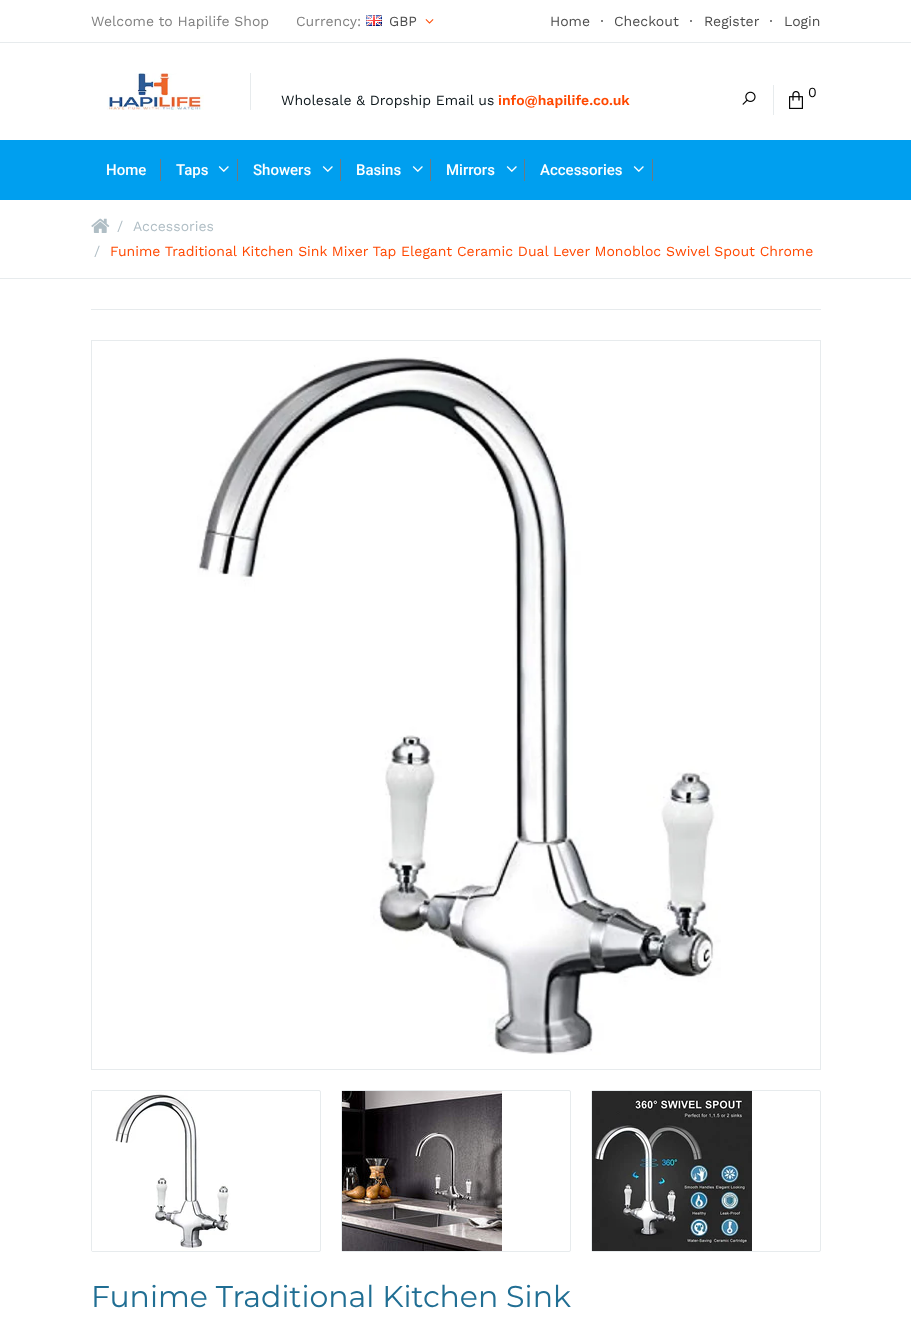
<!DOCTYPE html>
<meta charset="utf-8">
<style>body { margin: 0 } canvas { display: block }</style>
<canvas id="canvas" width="911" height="1339"></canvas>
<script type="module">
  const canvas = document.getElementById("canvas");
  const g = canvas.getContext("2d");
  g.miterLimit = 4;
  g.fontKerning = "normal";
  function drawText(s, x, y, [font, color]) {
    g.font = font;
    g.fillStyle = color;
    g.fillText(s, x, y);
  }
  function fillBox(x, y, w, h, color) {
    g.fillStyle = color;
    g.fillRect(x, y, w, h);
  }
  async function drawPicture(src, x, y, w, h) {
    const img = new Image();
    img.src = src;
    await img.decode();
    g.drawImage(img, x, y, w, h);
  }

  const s1 = ["14px Work Sans", "#808080"];
  const s2 = ["14px Work Sans", "#4C4C4C"];
  const s3 = ["14px Work Sans", "#000000"];
  const s4 = ["14px Work Sans", "#0A1419"];
  const s5 = ["600 14px Work Sans", "#FF4800"];
  const s6 = ["500 15px Roboto", "#FFFFFF"];
  const s7 = ["14px Work Sans", "#B0BEC5"];
  const s8 = ["14px Work Sans", "#FF4800"];
  const s9 = ["30px Montserrat", "#206E93"];

  fillBox(0, 0, 911, 1339, "#FFFFFF");
  fillBox(0, 42, 911, 1, "#E7EBED");
  drawText("Welcome to Hapilife Shop", 91, 26, s1);
  drawText("Currency:", 296, 26, s1);
  await drawPicture("pic1.png", 366, 15, 16, 11);
  drawText("GBP", 389, 26, s2);
  await drawPicture("pic2.png", 425, 19, 9, 5);
  drawText("Home", 550, 26, s2);
  fillBox(601, 20, 2, 2, "#808080");
  drawText("Checkout", 614, 26, s2);
  fillBox(690, 20, 2, 2, "#808080");
  drawText("Register", 704, 26, s2);
  fillBox(770, 20, 2, 2, "#808080");
  drawText("Login", 784, 26, s2);
  fillBox(250, 73, 1, 37, "#E7EBED");
  await drawPicture("pic3.png", 107, 73, 97, 37);
  await drawPicture("pic4.png", 742, 91, 14, 14);
  fillBox(773, 85, 1, 30, "#E7EBED");
  await drawPicture("pic5.png", 789, 91, 14, 18);
  drawText("0", 808, 97, s3);
  drawText("Wholesale & Dropship Email us", 281, 105, s4);
  drawText("info@hapilife.co.uk", 498, 105, s5);
  fillBox(0, 140, 911, 60, "#009FEF");
  drawText("Home", 106, 175, s6);
  fillBox(160, 159, 1, 22, "#6A7B83");
  drawText("Taps", 176, 175, s6);
  fillBox(237, 159, 1, 22, "#6A7B83");
  await drawPicture("pic6.png", 218, 166, 11, 6);
  drawText("Showers", 253, 175, s6);
  fillBox(340, 159, 1, 22, "#6A7B83");
  await drawPicture("pic6.png", 322, 166, 11, 6);
  drawText("Basins", 356, 175, s6);
  fillBox(430, 159, 1, 22, "#6A7B83");
  await drawPicture("pic6.png", 412, 166, 11, 6);
  drawText("Mirrors", 446, 175, s6);
  fillBox(524, 159, 1, 22, "#6A7B83");
  await drawPicture("pic6.png", 506, 166, 11, 6);
  drawText("Accessories", 540, 175, s6);
  fillBox(652, 159, 1, 22, "#6A7B83");
  await drawPicture("pic6.png", 633, 166, 11, 6);
  fillBox(0, 278, 911, 1, "#E7EBED");
  await drawPicture("pic7.png", 91, 218, 19, 15);
  drawText("/", 117, 231, s7);
  drawText("Accessories", 133, 231, s7);
  drawText("/", 94, 256, s7);
  drawText("Funime Traditional Kitchen Sink Mixer Tap Elegant Ceramic Dual Lever Monobloc Swivel Spout Chrome", 110, 256, s8);
  fillBox(91, 309, 730, 1, "#E7EBED");
  g.strokeStyle = "#E7EBED";
  g.strokeRect(91.5, 340.5, 729, 729);
  await drawPicture("pic8.png", 197, 357, 524, 698);
  g.beginPath();
  g.roundRect(91.5, 1090.5, 229, 161, 1.5);
  g.stroke();
  await drawPicture("pic9.png", 92, 1091, 139, 160);
  g.beginPath();
  g.roundRect(341.5, 1090.5, 229, 161, 1.5);
  g.stroke();
  await drawPicture("pic10.png", 342, 1091, 160, 160);
  g.beginPath();
  g.roundRect(591.5, 1090.5, 229, 161, 1.5);
  g.stroke();
  await drawPicture("pic11.png", 592, 1091, 160, 160);
  drawText("Funime Traditional Kitchen Sink", 91, 1307, s9);
</script>
